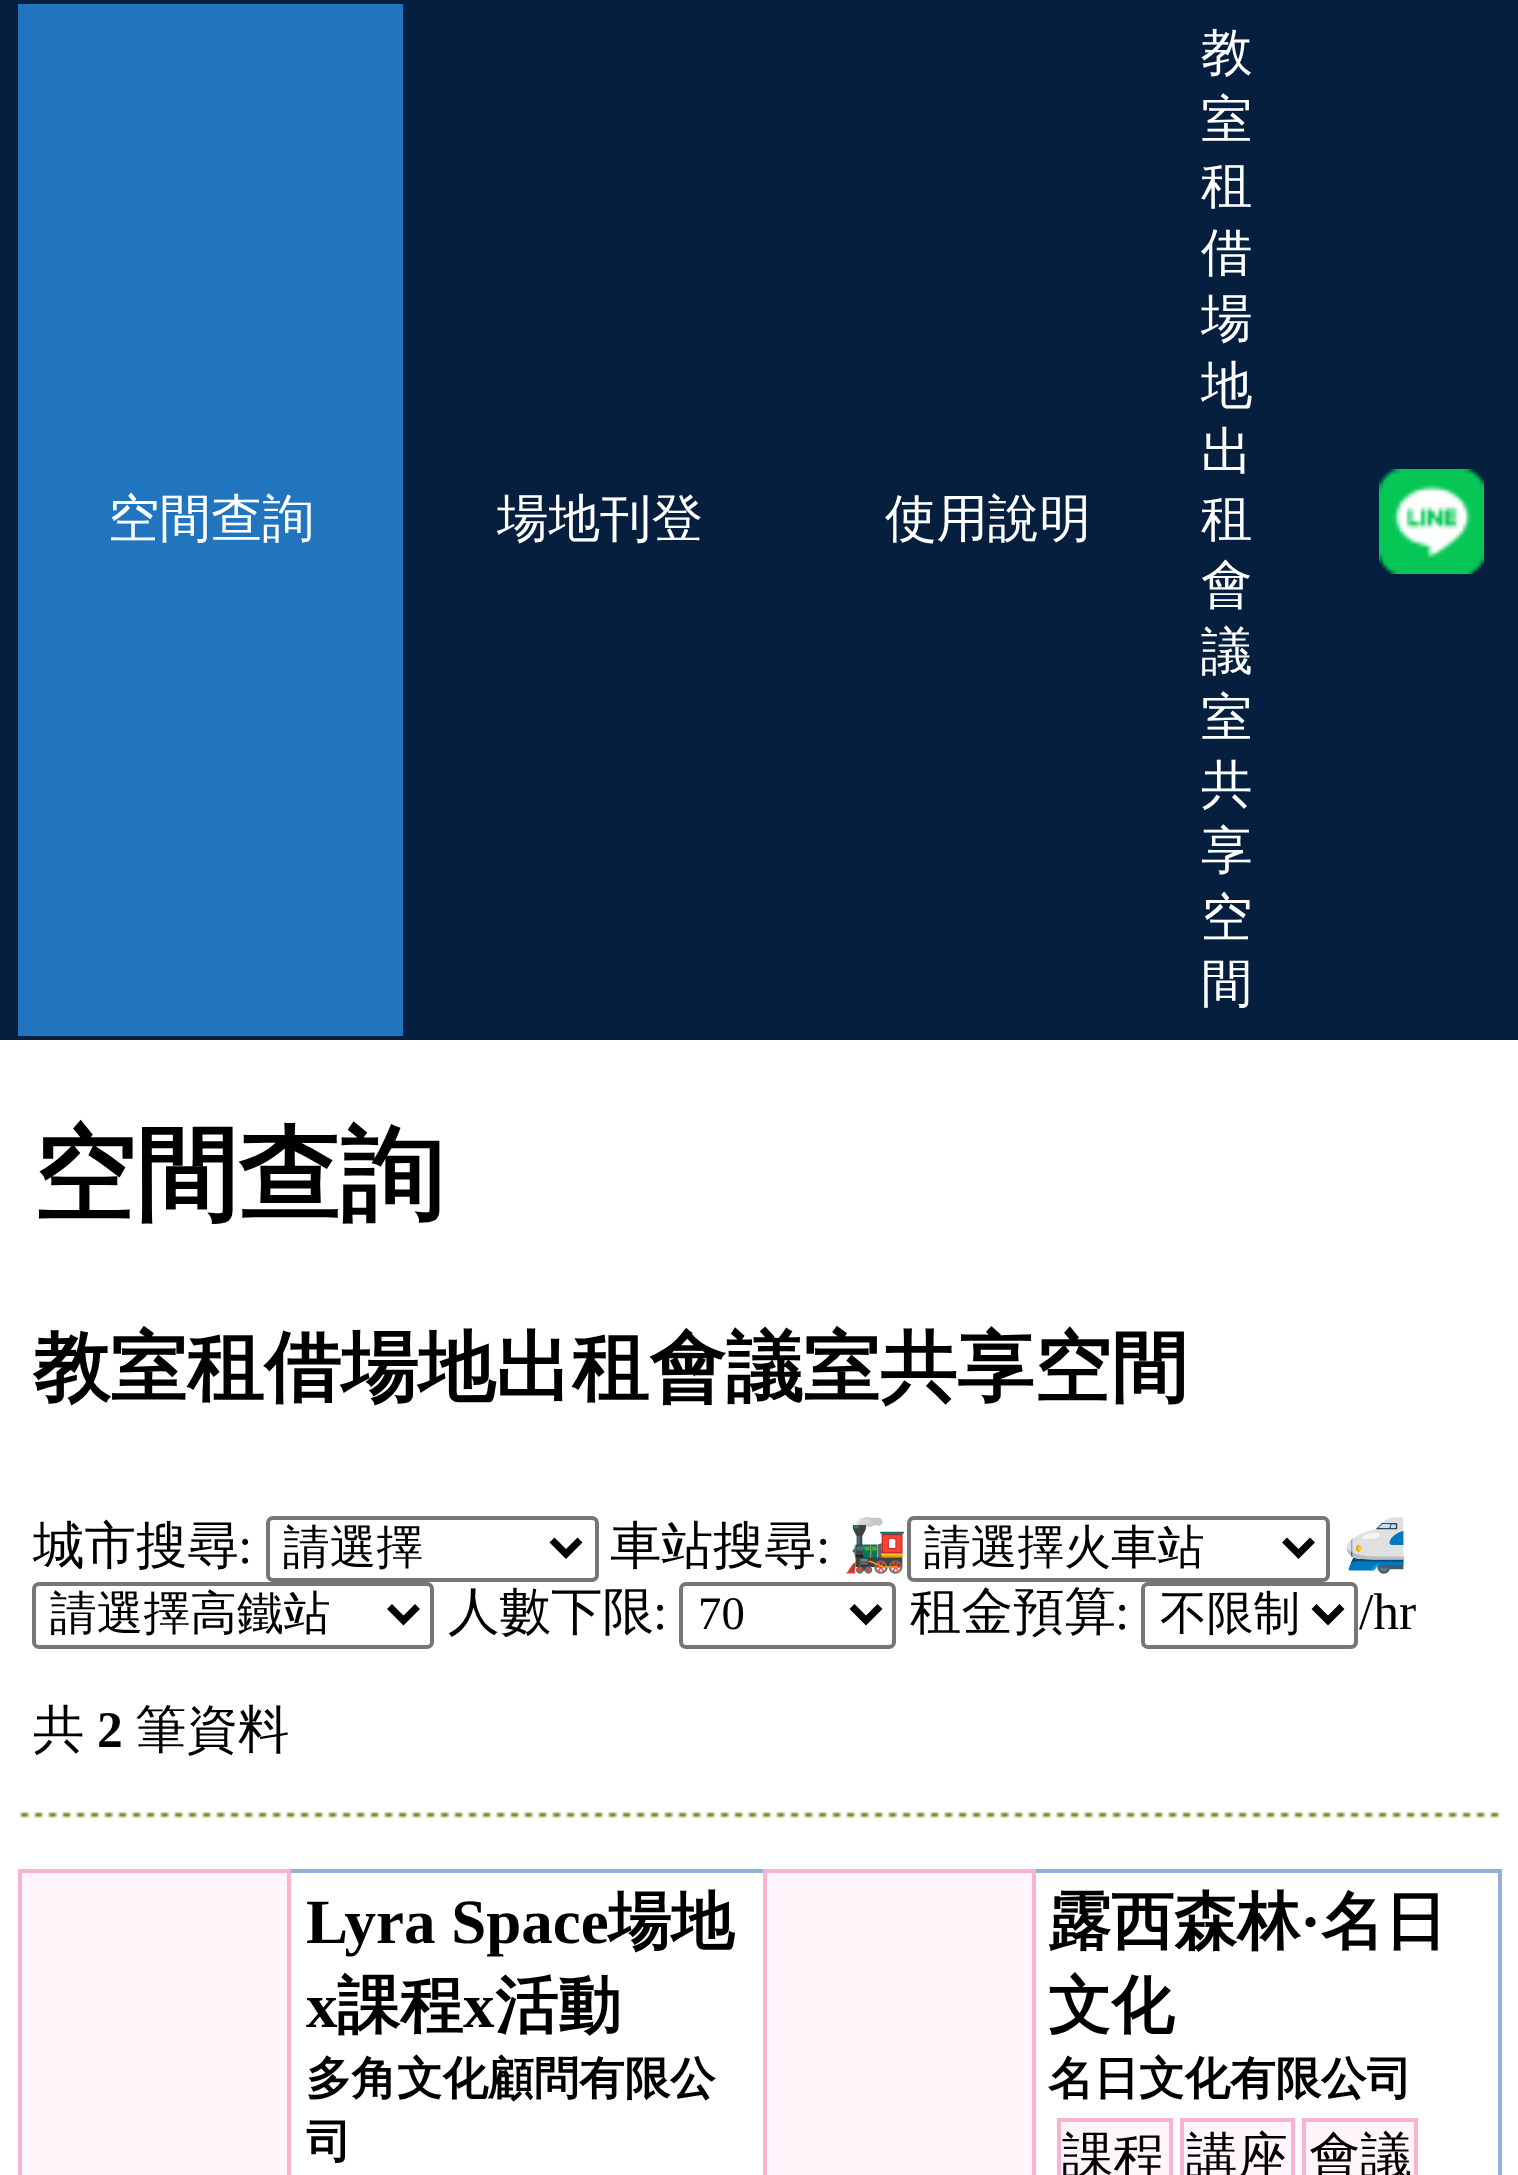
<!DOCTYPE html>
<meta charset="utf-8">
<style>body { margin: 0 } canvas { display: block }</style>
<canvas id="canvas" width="1518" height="2175"></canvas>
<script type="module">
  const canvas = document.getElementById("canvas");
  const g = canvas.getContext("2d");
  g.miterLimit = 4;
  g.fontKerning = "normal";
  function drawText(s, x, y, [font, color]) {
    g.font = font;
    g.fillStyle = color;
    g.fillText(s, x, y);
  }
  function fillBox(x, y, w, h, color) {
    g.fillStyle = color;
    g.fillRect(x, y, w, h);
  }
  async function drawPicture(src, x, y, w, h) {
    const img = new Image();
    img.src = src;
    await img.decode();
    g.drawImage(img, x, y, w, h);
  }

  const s1 = ["500 51.5px WenQuanYi Zen Hei", "#FFFFFF"];
  const s2 = ["bold 102.5px WenQuanYi Zen Hei", "#000000"];
  const s3 = ["bold 77px WenQuanYi Zen Hei", "#000000"];
  const s4 = ["500 51.5px WenQuanYi Zen Hei", "#000000"];
  const s5 = ["51.5px Liberation Serif", "#000000"];
  const s6 = ["500 46.75px WenQuanYi Zen Hei", "#000000"];
  const s7 = ["51.5px Noto Color Emoji", "#000000"];
  const s8 = ["46.75px Liberation Serif", "#000000"];
  const s9 = ["bold 51.5px Liberation Serif", "#000000"];
  const s10 = ["bold 63px Liberation Serif", "#000000"];
  const s11 = ["bold 63px WenQuanYi Zen Hei", "#000000"];
  const s12 = ["bold 45.5px WenQuanYi Zen Hei", "#000000"];

  fillBox(0, 0, 1518, 2175, "#FFFFFF");
  fillBox(0, 0, 1518, 1040, "#061F3E");
  fillBox(18, 4, 385, 1032, "#2175BF");
  drawText("空間查詢", 108, 536, s1);
  drawText("場地刊登", 497, 536, s1);
  drawText("使用說明", 885, 536, s1);
  drawText("教", 1201, 70, s1);
  drawText("室", 1201, 137, s1);
  drawText("租", 1201, 203, s1);
  drawText("借", 1201, 270, s1);
  drawText("場", 1201, 336, s1);
  drawText("地", 1201, 403, s1);
  drawText("出", 1201, 469, s1);
  drawText("租", 1201, 536, s1);
  drawText("會", 1201, 602, s1);
  drawText("議", 1201, 669, s1);
  drawText("室", 1201, 735, s1);
  drawText("共", 1201, 802, s1);
  drawText("享", 1201, 868, s1);
  drawText("空", 1201, 935, s1);
  drawText("間", 1201, 1001, s1);
  await drawPicture("pic1.png", 1379, 469, 105, 105);
  drawText("空間查詢", 33, 1210, s2);
  drawText("教室租借場地出租會議室共享空間", 33, 1394, s3);
  drawText("城市搜尋", 33, 1563, s4);
  drawText(":", 238, 1563, s5);
  g.beginPath();
  g.roundRect(268, 1518, 329, 62, 5);
  g.strokeStyle = "#767676";
  g.lineWidth = 4;
  g.stroke();
  g.beginPath();
  g.moveTo(552, 1540);
  g.lineTo(566, 1554);
  g.lineTo(580, 1540);
  g.strokeStyle = "#000000";
  g.lineWidth = 7;
  g.stroke();
  g.save();
  g.beginPath();
  g.rect(284, 1519, 255, 60);
  g.clip();
  drawText("請選擇", 283, 1563, s6);
  g.restore();
  drawText("車站搜尋", 610, 1563, s4);
  drawText(":", 816, 1563, s5);
  drawText("🚂", 843, 1563, s7);
  g.beginPath();
  g.roundRect(909, 1518, 419, 62, 5);
  g.strokeStyle = "#767676";
  g.lineWidth = 4;
  g.stroke();
  g.beginPath();
  g.moveTo(1284.5, 1540);
  g.lineTo(1298.5, 1554);
  g.lineTo(1312.5, 1540);
  g.strokeStyle = "#000000";
  g.lineWidth = 7;
  g.stroke();
  drawText("請選擇火車站", 924, 1563, s6);
  drawText("🚅", 1343, 1563, s7);
  g.beginPath();
  g.roundRect(34, 1584, 398, 63, 5);
  g.strokeStyle = "#767676";
  g.lineWidth = 4;
  g.stroke();
  g.beginPath();
  g.moveTo(389.5, 1606.5);
  g.lineTo(403.5, 1620.5);
  g.lineTo(417.5, 1606.5);
  g.strokeStyle = "#000000";
  g.lineWidth = 7;
  g.stroke();
  drawText("請選擇高鐵站", 50, 1629, s6);
  drawText("人數下限", 448, 1629, s4);
  drawText(":", 653, 1629, s5);
  g.beginPath();
  g.roundRect(681, 1584, 213, 63, 5);
  g.strokeStyle = "#767676";
  g.lineWidth = 4;
  g.stroke();
  g.beginPath();
  g.moveTo(852, 1606.5);
  g.lineTo(866, 1620.5);
  g.lineTo(880, 1606.5);
  g.strokeStyle = "#000000";
  g.lineWidth = 7;
  g.stroke();
  drawText("70", 698, 1629, s8);
  drawText("租金預算", 910, 1629, s4);
  drawText(":", 1115, 1629, s5);
  g.beginPath();
  g.roundRect(1143, 1584, 213, 63, 5);
  g.strokeStyle = "#767676";
  g.lineWidth = 4;
  g.stroke();
  g.beginPath();
  g.moveTo(1314, 1606.5);
  g.lineTo(1328, 1620.5);
  g.lineTo(1342, 1606.5);
  g.strokeStyle = "#000000";
  g.lineWidth = 7;
  g.stroke();
  drawText("不限制", 1160, 1629, s6);
  drawText("/hr", 1359, 1629, s5);
  drawText("共", 33, 1747, s4);
  drawText("2", 97, 1747, s9);
  drawText("筆資料", 135, 1747, s4);
  await drawPicture("pic2.png", 19, 1811, 1481, 7);
  g.strokeStyle = "#92B0DD";
  g.lineWidth = 4;
  g.strokeRect(20, 1871, 1480, 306);
  g.fillStyle = "#FFF5FA";
  g.beginPath();
  g.rect(20, 1871, 269, 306);
  g.fill();
  g.strokeStyle = "#F8B3D0";
  g.stroke();
  drawText("Lyra Space", 306, 1943, s10);
  drawText("場地", 608, 1943, s11);
  drawText("x", 306, 2027, s10);
  drawText("課程", 337, 2027, s11);
  drawText("x", 463, 2027, s10);
  drawText("活動", 495, 2027, s11);
  drawText("多角文化顧問有限公", 306, 2094, s12);
  drawText("司", 306, 2157, s12);
  g.fillStyle = "#FFF5FA";
  g.beginPath();
  g.rect(765, 1871, 269, 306);
  g.fill();
  g.stroke();
  drawText("露西森林", 1048, 1943, s11);
  drawText("·", 1300, 1943, s10);
  drawText("名日", 1321, 1943, s11);
  drawText("文化", 1048, 2027, s11);
  drawText("名日文化有限公司", 1048, 2094, s12);
  g.fillStyle = "#FFF5FA";
  g.beginPath();
  g.rect(1059, 2120, 112, 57);
  g.fill();
  g.stroke();
  drawText("課程", 1062, 2174, s4);
  g.fillStyle = "#FFF5FA";
  g.beginPath();
  g.rect(1182, 2120, 111, 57);
  g.fill();
  g.stroke();
  drawText("講座", 1186, 2174, s4);
  g.fillStyle = "#FFF5FA";
  g.beginPath();
  g.rect(1304, 2120, 112, 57);
  g.fill();
  g.stroke();
  drawText("會議", 1309, 2174, s4);
</script>
